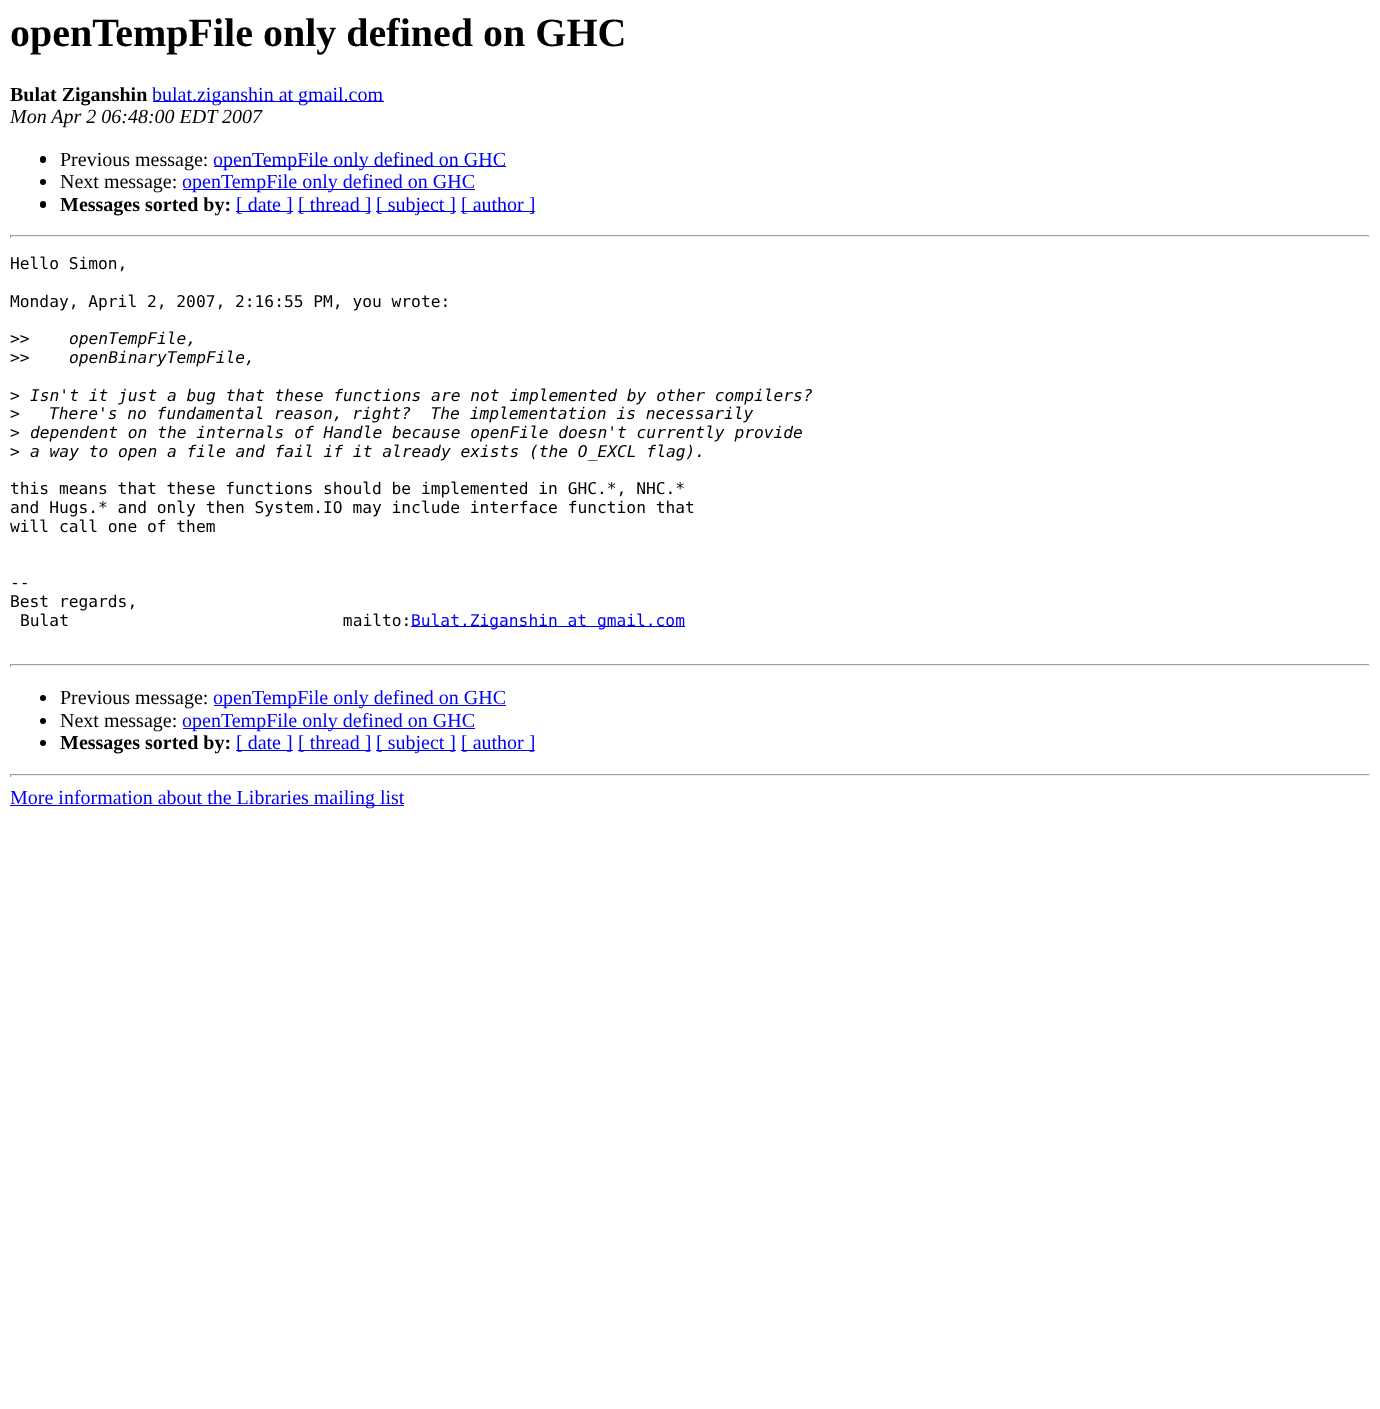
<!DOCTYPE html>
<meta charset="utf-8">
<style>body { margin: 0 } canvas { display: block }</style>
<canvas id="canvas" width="1380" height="1409"></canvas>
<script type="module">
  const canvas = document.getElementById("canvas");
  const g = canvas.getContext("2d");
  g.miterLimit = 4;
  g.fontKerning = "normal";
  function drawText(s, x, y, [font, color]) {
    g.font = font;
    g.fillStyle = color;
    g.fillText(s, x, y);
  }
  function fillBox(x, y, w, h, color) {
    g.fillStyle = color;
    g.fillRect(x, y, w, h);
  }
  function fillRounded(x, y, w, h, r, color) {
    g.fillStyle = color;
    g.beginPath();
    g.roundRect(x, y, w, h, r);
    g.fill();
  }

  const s1 = ["bold 40px Liberation Serif", "#000000"];
  const s2 = ["bold 20px Liberation Serif", "#000000"];
  const s3 = ["20px Liberation Serif", "#0000EE"];
  const s4 = ["italic 20px Liberation Serif", "#000000"];
  const s5 = ["20px Liberation Serif", "#000000"];
  const s6 = ["16.25px DejaVu Sans Mono", "#000000"];
  const s7 = ["italic 16.25px DejaVu Sans Mono", "#000000"];
  const s8 = ["16.25px DejaVu Sans Mono", "#0000EE"];

  fillBox(0, 0, 1380, 1409, "#FFFFFF");
  drawText("openTempFile only defined on GHC", 10, 46, s1);
  drawText("Bulat Ziganshin", 10, 101, s2);
  fillBox(153, 101, 231, 1, "#0000EE");
  drawText("bulat.ziganshin at gmail.com", 152, 101, s3);
  drawText("Mon Apr 2 06:48:00 EDT 2007", 10, 123, s4);
  fillRounded(40, 156, 6, 7, 3, "#000000");
  drawText("Previous message:", 60, 166, s5);
  fillBox(214, 166, 292, 1, "#0000EE");
  drawText("openTempFile only defined on GHC", 213, 166, s3);
  g.fillStyle = "#000000";
  g.beginPath();
  g.arc(43, 182, 3, 0, Math.PI * 2);
  g.fill();
  drawText("Next message:", 60, 188, s5);
  fillBox(183, 189, 292, 1, "#0000EE");
  drawText("openTempFile only defined on GHC", 182, 188, s3);
  fillRounded(40, 201, 6, 7, 3, "#000000");
  drawText("Messages sorted by:", 60, 211, s2);
  fillBox(236, 211, 57, 1, "#0000EE");
  drawText("[ date ]", 236, 211, s3);
  fillBox(298, 211, 73, 1, "#0000EE");
  drawText("[ thread ]", 298, 211, s3);
  fillBox(376, 211, 80, 1, "#0000EE");
  drawText("[ subject ]", 376, 211, s3);
  fillBox(461, 211, 74, 1, "#0000EE");
  drawText("[ author ]", 461, 211, s3);
  fillBox(10, 235, 1360, 1, "#9F9F9F");
  fillBox(1369, 235, 1, 3, "#EEEEEE");
  fillBox(10, 236, 1360, 1, "#EEEEEE");
  fillBox(10, 235, 1, 3, "#9F9F9F");
  drawText("Hello Simon,", 10, 269, s6);
  drawText("Monday, April 2, 2007, 2:16:55 PM, you wrote:", 10, 307, s6);
  drawText(">>", 10, 344, s6);
  drawText("openTempFile,", 69, 344, s7);
  drawText(">>", 10, 363, s6);
  drawText("openBinaryTempFile,", 69, 363, s7);
  drawText(">", 10, 401, s6);
  drawText("Isn't it just a bug that these functions are not implemented by other compilers?", 30, 401, s7);
  drawText(">", 10, 419, s6);
  drawText("There's no fundamental reason, right?  The implementation is necessarily", 49, 419, s7);
  drawText(">", 10, 438, s6);
  drawText("dependent on the internals of Handle because openFile doesn't currently provide", 30, 438, s7);
  drawText(">", 10, 457, s6);
  drawText("a way to open a file and fail if it already exists (the O_EXCL flag).", 30, 457, s7);
  drawText("this means that these functions should be implemented in GHC.*, NHC.*", 10, 494, s6);
  drawText("and Hugs.* and only then System.IO may include interface function that", 10, 513, s6);
  drawText("will call one of them", 10, 532, s6);
  drawText("--", 10, 588, s6);
  drawText("Best regards,", 10, 607, s6);
  drawText("Bulat                            mailto:", 20, 626, s6);
  fillBox(411, 626, 274, 1, "#0000EE");
  drawText("Bulat.Ziganshin at gmail.com", 411, 626, s8);
  fillBox(10, 664, 1360, 1, "#9F9F9F");
  fillBox(1369, 664, 1, 3, "#EEEEEE");
  fillBox(10, 665, 1360, 1, "#EEEEEE");
  fillBox(10, 664, 1, 3, "#9F9F9F");
  g.fillStyle = "#000000";
  g.beginPath();
  g.arc(43, 698, 3, 0, Math.PI * 2);
  g.fill();
  drawText("Previous message:", 60, 704, s5);
  fillBox(214, 705, 292, 1, "#0000EE");
  drawText("openTempFile only defined on GHC", 213, 704, s3);
  g.fillStyle = "#000000";
  g.beginPath();
  g.arc(43, 721, 3, 0, Math.PI * 2);
  g.fill();
  drawText("Next message:", 60, 727, s5);
  fillBox(183, 728, 292, 1, "#0000EE");
  drawText("openTempFile only defined on GHC", 182, 727, s3);
  g.fillStyle = "#000000";
  g.beginPath();
  g.arc(43, 743, 3, 0, Math.PI * 2);
  g.fill();
  drawText("Messages sorted by:", 60, 749, s2);
  fillBox(236, 750, 57, 1, "#0000EE");
  drawText("[ date ]", 236, 749, s3);
  fillBox(298, 750, 73, 1, "#0000EE");
  drawText("[ thread ]", 298, 749, s3);
  fillBox(376, 750, 80, 1, "#0000EE");
  drawText("[ subject ]", 376, 749, s3);
  fillBox(461, 750, 74, 1, "#0000EE");
  drawText("[ author ]", 461, 749, s3);
  fillBox(10, 774, 1360, 1, "#9F9F9F");
  fillBox(1369, 774, 1, 3, "#EEEEEE");
  fillBox(10, 775, 1360, 1, "#EEEEEE");
  fillBox(10, 774, 1, 3, "#9F9F9F");
  fillBox(10, 805, 394, 1, "#0000EE");
  drawText("More information about the Libraries mailing list", 10, 804, s3);
</script>
